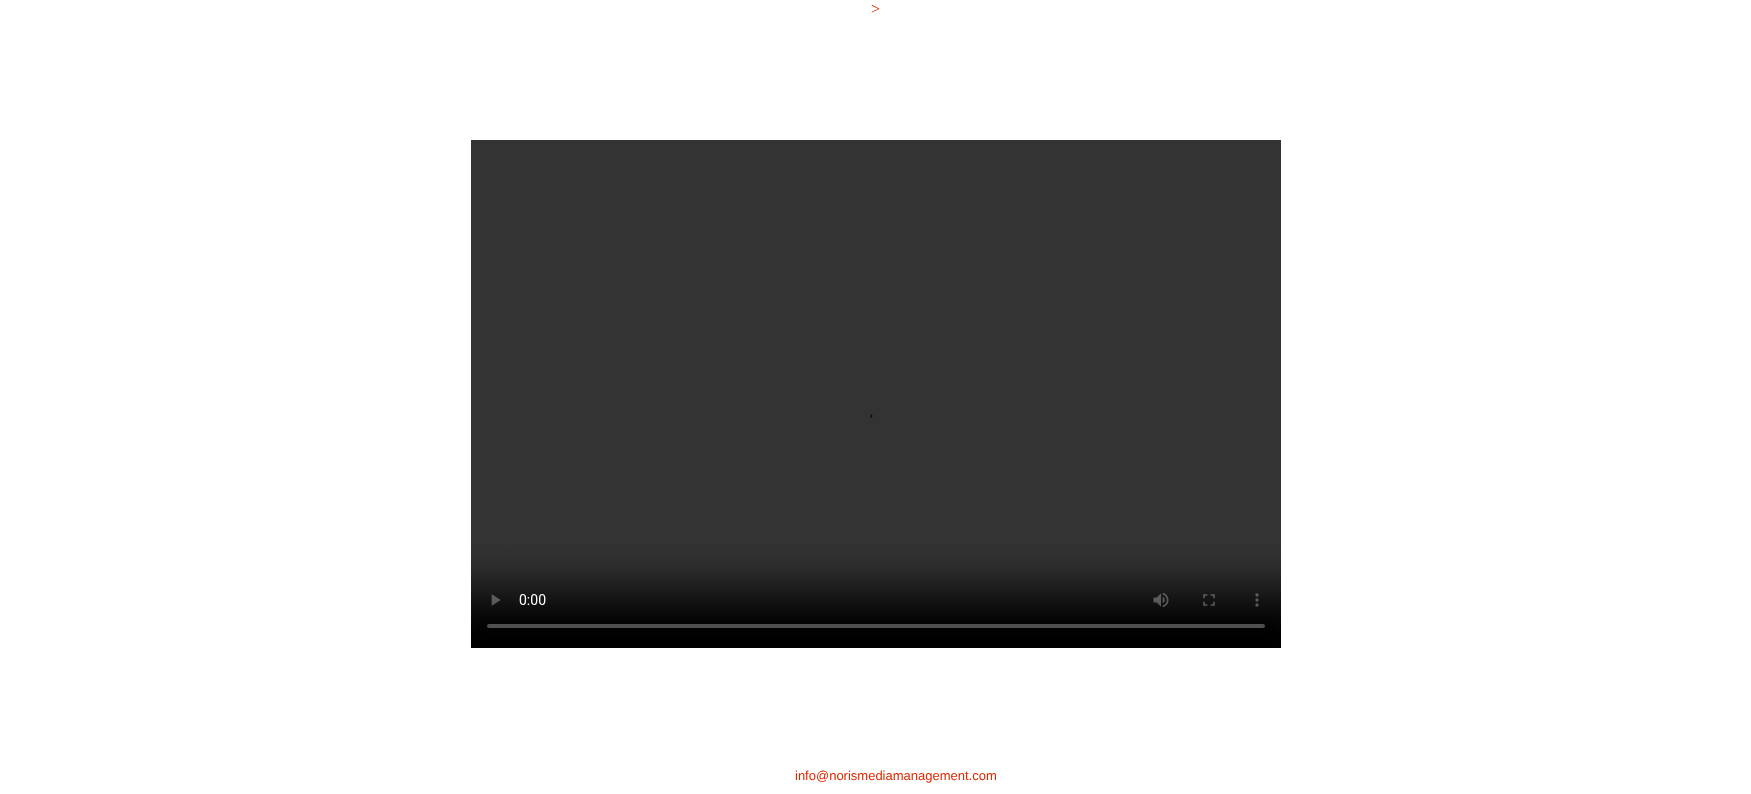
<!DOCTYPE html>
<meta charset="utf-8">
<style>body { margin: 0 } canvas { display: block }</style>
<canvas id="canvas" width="1751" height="794"></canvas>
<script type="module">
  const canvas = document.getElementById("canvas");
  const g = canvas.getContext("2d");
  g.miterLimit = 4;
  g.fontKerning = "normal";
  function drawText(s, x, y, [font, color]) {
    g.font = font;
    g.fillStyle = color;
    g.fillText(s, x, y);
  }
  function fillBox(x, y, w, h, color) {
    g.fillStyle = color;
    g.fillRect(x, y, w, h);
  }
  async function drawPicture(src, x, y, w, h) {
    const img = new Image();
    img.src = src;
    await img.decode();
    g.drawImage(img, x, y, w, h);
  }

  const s1 = ["16px Liberation Serif", "#E02800"];
  const s2 = ["13px Liberation Sans", "#E02800"];

  fillBox(0, 0, 1751, 794, "#FFFFFF");
  drawText(">", 871, 14, s1);
  await drawPicture("pic1.png", 471, 140, 810, 508);
  drawText("info@norismediamanagement.com", 795, 780, s2);
</script>
